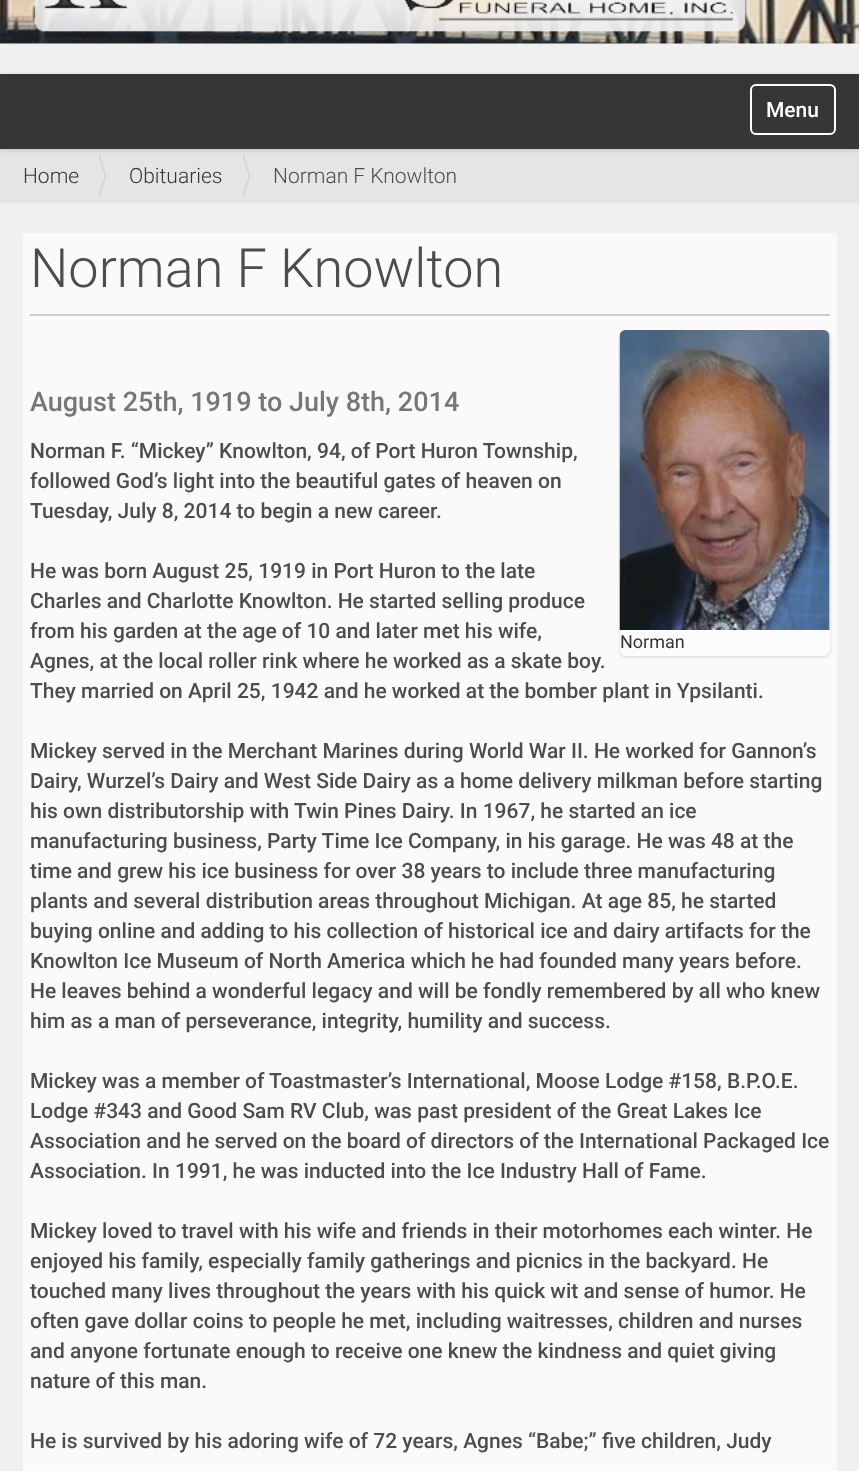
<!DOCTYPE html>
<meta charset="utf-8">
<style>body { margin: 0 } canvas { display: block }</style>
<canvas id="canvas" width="859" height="1471"></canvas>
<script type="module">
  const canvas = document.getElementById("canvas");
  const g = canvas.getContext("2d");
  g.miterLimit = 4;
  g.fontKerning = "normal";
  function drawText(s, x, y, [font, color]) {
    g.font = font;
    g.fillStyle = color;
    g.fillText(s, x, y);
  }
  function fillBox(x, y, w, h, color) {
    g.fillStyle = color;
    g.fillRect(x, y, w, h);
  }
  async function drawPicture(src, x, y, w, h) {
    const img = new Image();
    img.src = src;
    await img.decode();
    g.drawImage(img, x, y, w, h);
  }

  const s1 = ["500 21px Roboto", "#FFFFFF"];
  const s2 = ["300 21px Roboto", "#363636"];
  const s3 = ["300 21px Roboto", "#4D4D4D"];
  const s4 = ["300 54px Roboto", "#4D4D4D"];
  const s5 = ["500 27px Roboto", "#777777"];
  const s6 = ["18px Roboto", "#363636"];
  const s7 = ["500 21px Roboto", "#4D4D4D"];

  fillBox(0, 0, 859, 1471, "#F1F0F0");
  await drawPicture("pic1.png", 0, 0, 859, 44);
  await drawPicture("pic2.png", 34, 0, 712, 32);
  fillBox(0, 149, 859, 54, "#E6E4E4");
  g.fillStyle = "rgba(0, 0, 0, 0.17)";
  g.filter = "blur(2px)";
  g.beginPath();
  g.rect(0, 75, 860, 75);
  g.fill();
  g.filter = "none";
  fillBox(0, 74, 859, 75, "#363636");
  g.beginPath();
  g.roundRect(751, 85, 84, 49, 5);
  g.strokeStyle = "#FFFFFF";
  g.lineWidth = 2;
  g.stroke();
  drawText("Menu", 766, 117, s1);
  drawText("Home", 23, 183, s2);
  g.fillStyle = "#CCCCCC";
  g.beginPath();
  g.moveTo(99, 198);
  g.lineTo(99, 153);
  g.lineTo(106, 176);
  g.closePath();
  g.fill();
  g.fillStyle = "#E6E4E4";
  g.beginPath();
  g.moveTo(98, 198);
  g.lineTo(98, 153);
  g.lineTo(105, 176);
  g.closePath();
  g.fill();
  drawText("Obituaries", 129, 183, s2);
  g.fillStyle = "#CCCCCC";
  g.beginPath();
  g.moveTo(243, 198);
  g.lineTo(243, 153);
  g.lineTo(250, 176);
  g.closePath();
  g.fill();
  g.fillStyle = "#E6E4E4";
  g.beginPath();
  g.moveTo(242, 198);
  g.lineTo(242, 153);
  g.lineTo(249, 176);
  g.closePath();
  g.fill();
  drawText("Norman F Knowlton", 273, 183, s3);
  fillBox(23, 233, 814, 1238, "#FAFAFA");
  fillBox(30, 314, 800, 2, "#CCCCCC");
  drawText("Norman F Knowlton", 30, 287, s4);
  drawText("August 25th, 1919 to July 8th, 2014", 30, 411, s5);
  g.fillStyle = "rgba(0, 0, 0, 0.17)";
  g.filter = "blur(1.5px)";
  g.beginPath();
  g.roundRect(620, 332, 210, 325, 6);
  g.fill();
  g.filter = "none";
  await drawPicture("pic3.png", 619, 330, 211, 300);
  g.fillStyle = "#FCFCFD";
  g.beginPath();
  g.roundRect(620, 630, 210, 26, [0, 0, 6, 6]);
  g.fill();
  drawText("Norman", 620, 648, s6);
  drawText("Norman F. “Mickey” Knowlton, 94, of Port Huron Township,", 30, 458, s7);
  drawText("followed God’s light into the beautiful gates of heaven on", 30, 488, s7);
  drawText("Tuesday, July 8, 2014 to begin a new career.", 30, 518, s7);
  drawText("He was born August 25, 1919 in Port Huron to the late", 30, 578, s7);
  drawText("Charles and Charlotte Knowlton. He started selling produce", 30, 608, s7);
  drawText("from his garden at the age of 10 and later met his wife,", 30, 638, s7);
  drawText("Agnes, at the local roller rink where he worked as a skate boy.", 30, 668, s7);
  drawText("They married on April 25, 1942 and he worked at the bomber plant in Ypsilanti.", 30, 698, s7);
  drawText("Mickey served in the Merchant Marines during World War II. He worked for Gannon’s", 30, 758, s7);
  drawText("Dairy, Wurzel’s Dairy and West Side Dairy as a home delivery milkman before starting", 30, 788, s7);
  drawText("his own distributorship with Twin Pines Dairy. In 1967, he started an ice", 30, 818, s7);
  drawText("manufacturing business, Party Time Ice Company, in his garage. He was 48 at the", 30, 848, s7);
  drawText("time and grew his ice business for over 38 years to include three manufacturing", 30, 878, s7);
  drawText("plants and several distribution areas throughout Michigan. At age 85, he started", 30, 908, s7);
  drawText("buying online and adding to his collection of historical ice and dairy artifacts for the", 30, 938, s7);
  drawText("Knowlton Ice Museum of North America which he had founded many years before.", 30, 968, s7);
  drawText("He leaves behind a wonderful legacy and will be fondly remembered by all who knew", 30, 998, s7);
  drawText("him as a man of perseverance, integrity, humility and success.", 30, 1028, s7);
  drawText("Mickey was a member of Toastmaster’s International, Moose Lodge #158, B.P.O.E.", 30, 1088, s7);
  drawText("Lodge #343 and Good Sam RV Club, was past president of the Great Lakes Ice", 30, 1118, s7);
  drawText("Association and he served on the board of directors of the International Packaged Ice", 30, 1148, s7);
  drawText("Association. In 1991, he was inducted into the Ice Industry Hall of Fame.", 30, 1178, s7);
  drawText("Mickey loved to travel with his wife and friends in their motorhomes each winter. He", 30, 1238, s7);
  drawText("enjoyed his family, especially family gatherings and picnics in the backyard. He", 30, 1268, s7);
  drawText("touched many lives throughout the years with his quick wit and sense of humor. He", 30, 1298, s7);
  drawText("often gave dollar coins to people he met, including waitresses, children and nurses", 30, 1328, s7);
  drawText("and anyone fortunate enough to receive one knew the kindness and quiet giving", 30, 1358, s7);
  drawText("nature of this man.", 30, 1388, s7);
  drawText("He is survived by his adoring wife of 72 years, Agnes “Babe;” five children, Judy", 30, 1448, s7);
</script>
